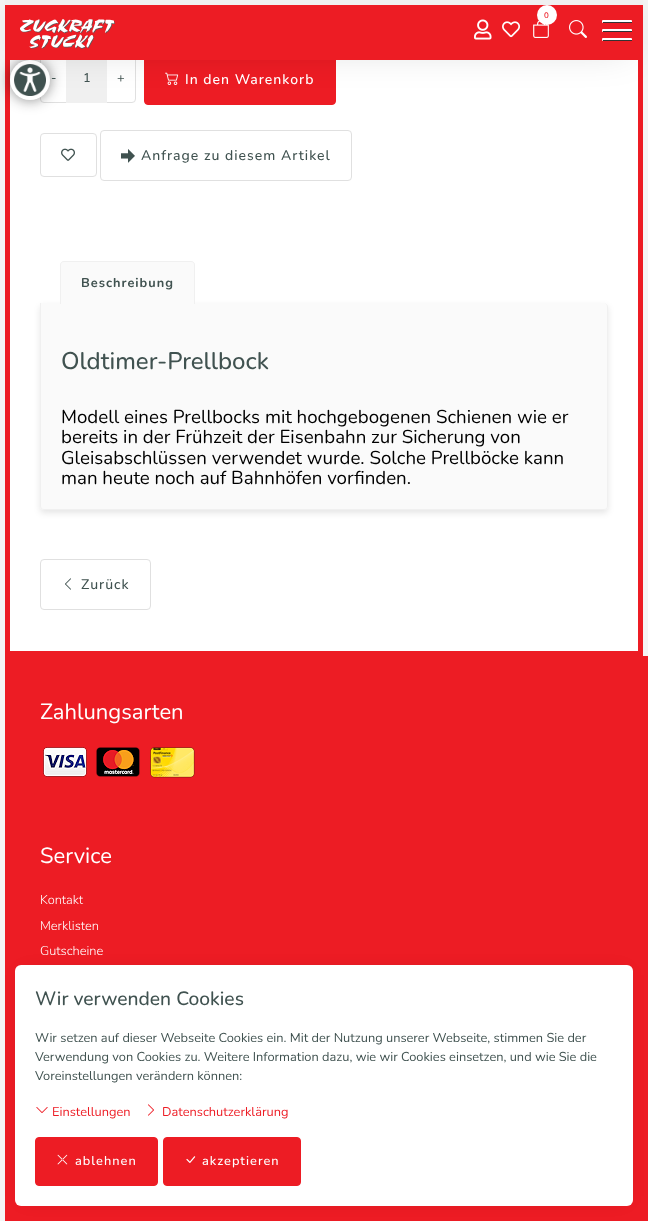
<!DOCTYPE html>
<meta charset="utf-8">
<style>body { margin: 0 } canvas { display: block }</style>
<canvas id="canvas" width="648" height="1221"></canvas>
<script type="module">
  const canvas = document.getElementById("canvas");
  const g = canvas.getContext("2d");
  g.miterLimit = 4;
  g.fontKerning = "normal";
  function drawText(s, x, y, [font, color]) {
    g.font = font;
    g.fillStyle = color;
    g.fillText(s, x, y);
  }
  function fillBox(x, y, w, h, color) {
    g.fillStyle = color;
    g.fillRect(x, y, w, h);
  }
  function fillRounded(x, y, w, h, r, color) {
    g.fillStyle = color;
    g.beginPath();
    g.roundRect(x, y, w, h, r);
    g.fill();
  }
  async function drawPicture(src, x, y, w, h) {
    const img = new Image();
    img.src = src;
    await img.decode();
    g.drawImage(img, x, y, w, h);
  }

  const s1 = ["600 8px Nunito", "#ED1C24"];
  const s2 = ["500 12.8px Nunito", "#405250"];
  const s3 = ["500 14px Nunito", "#FFFFFF"];
  const s4 = ["500 14px Nunito", "#405250"];
  const s5 = ["bold 12.8px Nunito", "#405250"];
  const s6 = ["500 24px Nunito", "#405250"];
  const s7 = ["18.7px Nunito", "#000000"];
  const s8 = ["500 19.25px Nunito", "#405250"];
  const s9 = ["12.8px Nunito", "#405250"];
  const s10 = ["12.8px Nunito", "#ED1C24"];
  const s11 = ["500 12.8px Nunito", "#FFFFFF"];
  const s12 = ["22px Nunito", "#FFFFFF"];
  const s13 = ["300 12.8px Nunito", "#FFFFFF"];

  fillBox(0, 0, 648, 1221, "#F5F5F5");
  fillBox(10, 60, 628, 591, "#FFFFFF");
  g.strokeStyle = "#ED1C24";
  g.lineWidth = 5;
  g.strokeRect(7.5, -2.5, 633, 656);
  g.beginPath();
  g.roundRect(40.5, 54.5, 26, 48, [3.5, 0, 0, 3.5]);
  g.strokeStyle = "#E0E0E0";
  g.lineWidth = 1;
  g.stroke();
  g.beginPath();
  g.roundRect(106.5, 54.5, 29, 48, [0, 3.5, 3.5, 0]);
  g.stroke();
  fillBox(66, 60, 41, 43, "#F0F0F0");
  g.fillStyle = "rgba(15, 17, 17, 0.5)";
  g.filter = "blur(7px)";
  g.beginPath();
  g.roundRect(10, 60, 40, 40, 20);
  g.fill();
  g.filter = "none";
  g.fillStyle = "#FFFFFF";
  g.beginPath();
  g.arc(30, 80, 20, 0, Math.PI * 2);
  g.fill();
  await drawPicture("pic6.png", 14, 64, 32, 32);
  g.fillStyle = "#ED1C24";
  g.beginPath();
  g.roundRect(144.5, 54.5, 191, 50, 3.5);
  g.fill();
  g.strokeStyle = "#ED1C24";
  g.stroke();
  await drawPicture("pic7.png", 165, 72, 14, 13);
  g.fillStyle = "rgba(0, 0, 0, 0.2)";
  g.filter = "blur(20px)";
  g.beginPath();
  g.rect(20, 15, 608, 30);
  g.fill();
  g.filter = "none";
  fillBox(5, 5, 638, 55, "#ED1C24");
  fillBox(5, 0, 638, 5, "#F0F0F0");
  await drawPicture("pic1.png", 533, 20, 16, 18);
  g.fillStyle = "#FFFFFF";
  g.beginPath();
  g.arc(547, 15, 9, 0, Math.PI * 2);
  g.fill();
  g.strokeStyle = "#FFFFFF";
  g.lineWidth = 2;
  g.stroke();
  drawText("0", 544, 18, s1);
  await drawPicture("pic2.png", 474, 19, 18, 21);
  await drawPicture("pic3.png", 502, 21, 18, 17);
  await drawPicture("pic4.png", 569, 20, 18, 18);
  await drawPicture("pic5.png", 20, 19, 95, 30);
  fillRounded(602, 20, 30, 3, 1, "#FFFFFF");
  fillBox(603, 22, 29, 1, "#333333");
  fillRounded(602, 29, 30, 3, 1, "#FFFFFF");
  fillBox(603, 31, 29, 1, "#333333");
  fillRounded(602, 38, 30, 3, 1, "#FFFFFF");
  fillBox(603, 40, 29, 1, "#333333");
  drawText("-", 51, 82, s2);
  drawText("1", 83, 82, s2);
  drawText("+", 117, 82, s2);
  g.letterSpacing = "1px";
  drawText("In den Warenkorb", 185, 84, s3);
  g.beginPath();
  g.roundRect(40.5, 133.5, 56, 43, 3.5);
  g.strokeStyle = "#E0E0E0";
  g.lineWidth = 1;
  g.stroke();
  await drawPicture("pic8.png", 61, 148, 14, 13);
  g.beginPath();
  g.roundRect(100.5, 130.5, 251, 50, 3.5);
  g.stroke();
  await drawPicture("pic9.png", 121, 149, 14, 14);
  drawText("Anfrage zu diesem Artikel", 141, 160, s4);
  g.fillStyle = "rgba(0, 0, 0, 0.1)";
  g.filter = "blur(3px)";
  g.beginPath();
  g.roundRect(40, 306, 568, 207, 4);
  g.fill();
  g.filter = "none";
  g.fillStyle = "#FAFAFA";
  g.beginPath();
  g.roundRect(40, 303, 568, 207, [0, 4, 4, 4]);
  g.fill();
  g.fillStyle = "#F0F0F0";
  g.beginPath();
  g.moveTo(40, 303);
  g.lineTo(604, 303);
  g.bezierCurveTo(606, 303, 608, 305, 608, 307);
  g.lineTo(608, 506);
  g.bezierCurveTo(608, 508, 606, 510, 604, 510);
  g.lineTo(44, 510);
  g.bezierCurveTo(42, 510, 40, 508, 40, 506);
  g.closePath();
  g.moveTo(41, 303);
  g.lineTo(604, 303);
  g.bezierCurveTo(606, 303, 607, 305, 607, 307);
  g.lineTo(607, 506);
  g.bezierCurveTo(607, 508, 606, 509, 604, 509);
  g.lineTo(44, 509);
  g.bezierCurveTo(42, 509, 41, 508, 41, 506);
  g.closePath();
  g.fill("evenodd");
  g.fillStyle = "#FAFAFA";
  g.beginPath();
  g.roundRect(60, 261, 135, 43, [4, 4, 0, 0]);
  g.fill();
  g.fillStyle = "#F0F0F0";
  g.beginPath();
  g.moveTo(64, 261);
  g.lineTo(191, 261);
  g.bezierCurveTo(193, 261, 195, 263, 195, 265);
  g.lineTo(195, 304);
  g.lineTo(60, 304);
  g.lineTo(60, 265);
  g.bezierCurveTo(60, 263, 62, 261, 64, 261);
  g.closePath();
  g.moveTo(64, 262);
  g.lineTo(191, 262);
  g.bezierCurveTo(193, 262, 194, 263, 194, 265);
  g.lineTo(194, 304);
  g.lineTo(61, 304);
  g.lineTo(61, 265);
  g.bezierCurveTo(61, 263, 62, 262, 64, 262);
  g.closePath();
  g.fill("evenodd");
  drawText("Beschreibung", 81, 287, s5);
  g.letterSpacing = "0px";
  drawText("Oldtimer-Prellbock", 61, 369, s6);
  drawText("Modell eines Prellbocks mit hochgebogenen Schienen wie er", 61, 423, s7);
  drawText("bereits in der Frühzeit der Eisenbahn zur Sicherung von", 61, 443, s7);
  drawText("Gleisabschlüssen verwendet wurde. Solche Prellböcke kann", 61, 464, s7);
  drawText("man heute noch auf Bahnhöfen vorfinden.", 61, 484, s7);
  g.beginPath();
  g.roundRect(40.5, 559.5, 110, 50, 3.5);
  g.stroke();
  await drawPicture("pic10.png", 65, 578, 6, 12);
  g.letterSpacing = "1px";
  drawText("Zurück", 81, 589, s4);
  g.fillStyle = "#ED1C24";
  g.beginPath();
  g.rect(7.5, 658.5, 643, 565);
  g.fill();
  g.strokeStyle = "#ED1C24";
  g.lineWidth = 5;
  g.stroke();
  g.fillStyle = "rgba(0, 0, 0, 0.2)";
  g.filter = "blur(10px)";
  g.beginPath();
  g.rect(25, 975, 598, 221);
  g.fill();
  g.filter = "none";
  fillRounded(15, 965, 618, 241, 6, "#FFFFFF");
  g.letterSpacing = "0px";
  drawText("Wir verwenden Cookies", 35, 1005, s8);
  drawText("Wir setzen auf dieser Webseite Cookies ein. Mit der Nutzung unserer Webseite, stimmen Sie der", 35, 1042, s9);
  drawText("Verwendung von Cookies zu. Weitere Information dazu, wie wir Cookies einsetzen, und wie Sie die", 35, 1061, s9);
  drawText("Voreinstellungen verändern können:", 35, 1080, s9);
  await drawPicture("pic11.png", 36, 1107, 12, 6);
  drawText("Einstellungen", 52, 1116, s10);
  await drawPicture("pic12.png", 148, 1104, 6, 12);
  drawText("Datenschutzerklärung", 162, 1116, s10);
  g.beginPath();
  g.roundRect(35.5, 1137.5, 122, 48, 3.5);
  g.fill();
  g.lineWidth = 1;
  g.stroke();
  await drawPicture("pic13.png", 57, 1154, 11, 11);
  g.letterSpacing = "1px";
  drawText("ablehnen", 75, 1165, s11);
  g.fillStyle = "#ED1C24";
  g.beginPath();
  g.roundRect(163.5, 1137.5, 137, 48, 3.5);
  g.fill();
  g.stroke();
  await drawPicture("pic14.png", 186, 1156, 10, 7);
  drawText("akzeptieren", 202, 1165, s11);
  g.letterSpacing = "0px";
  drawText("Zahlungsarten", 40, 719, s12);
  await drawPicture("pic15.png", 43, 747, 44, 30);
  await drawPicture("pic16.png", 96, 747, 44, 30);
  await drawPicture("pic17.png", 150, 747, 45, 31);
  drawText("Service", 40, 863, s12);
  drawText("Kontakt", 40, 904, s13);
  drawText("Merklisten", 40, 930, s13);
  drawText("Gutscheine", 40, 955, s13);
</script>
